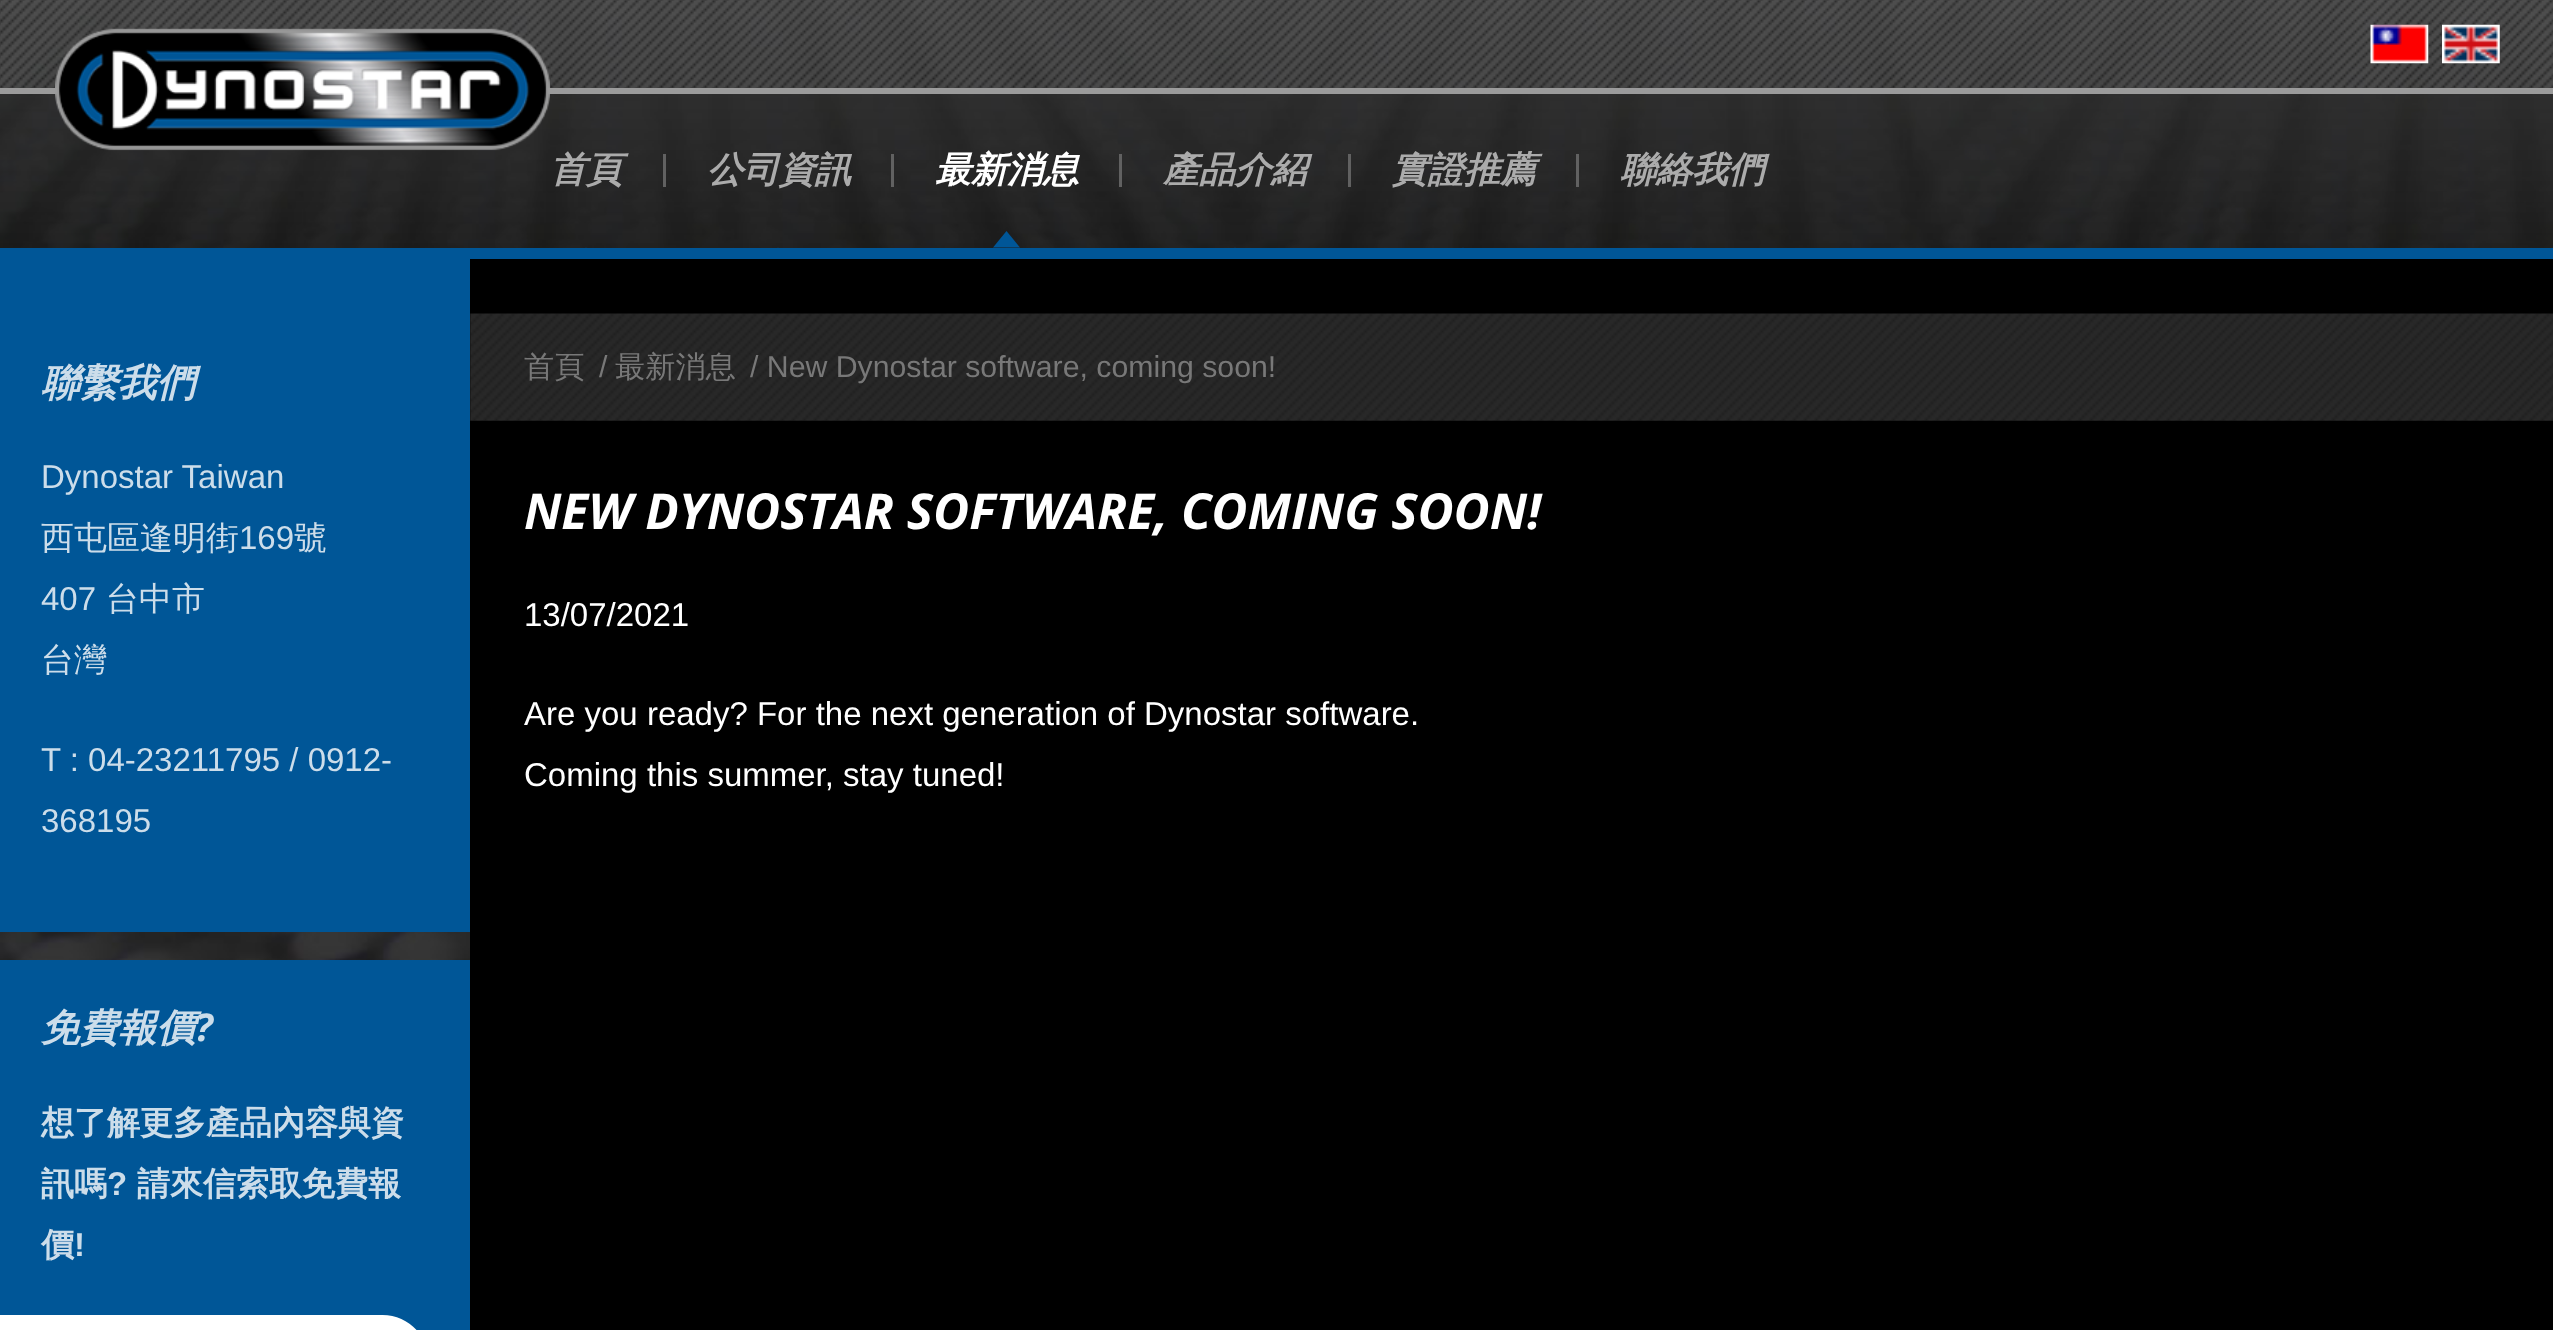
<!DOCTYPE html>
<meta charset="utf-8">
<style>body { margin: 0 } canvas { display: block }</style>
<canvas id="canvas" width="2553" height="1330"></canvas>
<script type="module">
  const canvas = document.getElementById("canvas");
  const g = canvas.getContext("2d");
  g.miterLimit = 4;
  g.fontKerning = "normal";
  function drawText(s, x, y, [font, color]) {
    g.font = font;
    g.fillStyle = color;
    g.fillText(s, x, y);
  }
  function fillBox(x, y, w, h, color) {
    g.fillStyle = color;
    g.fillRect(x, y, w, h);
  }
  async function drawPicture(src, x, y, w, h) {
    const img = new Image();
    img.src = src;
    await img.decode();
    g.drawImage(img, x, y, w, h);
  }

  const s1 = ["italic bold 36px WenQuanYi Zen Hei", "#ABABAB"];
  const s2 = ["italic bold 36px WenQuanYi Zen Hei", "#FFFFFF"];
  const s3 = ["italic bold 38.5px WenQuanYi Zen Hei", "#CCDDEA"];
  const s4 = ["33px Liberation Sans", "#CCDDEA"];
  const s5 = ["500 33px WenQuanYi Zen Hei", "#CCDDEA"];
  const s6 = ["italic bold 38.5px Open Sans", "#CCDDEA"];
  const s7 = ["bold 33px WenQuanYi Zen Hei", "#CCDDEA"];
  const s8 = ["bold 33px Liberation Sans", "#CCDDEA"];
  const s9 = ["500 30.25px WenQuanYi Zen Hei", "#787878"];
  const s10 = ["30.25px Liberation Sans", "#787878"];
  const s11 = ["italic bold 49.5px Open Sans", "#FFFFFF"];
  const s12 = ["33px Liberation Sans", "#FFFFFF"];

  fillBox(0, 0, 2553, 1330, "#FFFFFF");
  await drawPicture("pic1.png", 0, 0, 2553, 960);
  fillBox(0, 248, 2553, 11, "#005697");
  await drawPicture("pic2.png", 0, 0, 2553, 88);
  fillBox(0, 88, 2553, 6, "#9B9B9B");
  await drawPicture("pic3.png", 2370, 24, 59, 40);
  await drawPicture("pic4.png", 2442, 24, 58, 40);
  await drawPicture("pic5.png", 55, 28, 495, 123);
  drawText("首頁", 550, 182, s1);
  fillBox(663, 154, 3, 33, "#616161");
  g.save();
  g.beginPath();
  g.rect(0, 94, 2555, 154);
  g.clip();
  g.fillStyle = "#005697";
  g.beginPath();
  g.moveTo(599.5, 264);
  g.lineTo(572, 264);
  g.lineTo(586, 247.5);
  g.closePath();
  g.fill();
  g.restore();
  drawText("公司資訊", 707, 182, s1);
  fillBox(891, 154, 3, 33, "#616161");
  g.save();
  g.beginPath();
  g.rect(0, 94, 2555, 154);
  g.clip();
  g.fillStyle = "#005697";
  g.beginPath();
  g.moveTo(792, 264);
  g.lineTo(764.5, 264);
  g.lineTo(778, 247.5);
  g.closePath();
  g.fill();
  g.restore();
  drawText("最新消息", 935, 182, s2);
  fillBox(1119, 154, 3, 33, "#616161");
  g.fillStyle = "#005697";
  g.beginPath();
  g.moveTo(1020, 247.5);
  g.lineTo(993, 247.5);
  g.lineTo(1006.5, 231);
  g.closePath();
  g.fill();
  drawText("產品介紹", 1163, 182, s1);
  fillBox(1348, 154, 3, 33, "#616161");
  g.save();
  g.beginPath();
  g.rect(0, 94, 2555, 154);
  g.clip();
  g.fillStyle = "#005697";
  g.beginPath();
  g.moveTo(1248.5, 264);
  g.lineTo(1221, 264);
  g.lineTo(1235, 247.5);
  g.closePath();
  g.fill();
  g.restore();
  drawText("實證推薦", 1392, 182, s1);
  fillBox(1576, 154, 3, 33, "#616161");
  g.save();
  g.beginPath();
  g.rect(0, 94, 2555, 154);
  g.clip();
  g.fillStyle = "#005697";
  g.beginPath();
  g.moveTo(1477, 264);
  g.lineTo(1449, 264);
  g.lineTo(1463, 247.5);
  g.closePath();
  g.fill();
  g.restore();
  drawText("聯絡我們", 1620, 182, s1);
  g.save();
  g.beginPath();
  g.rect(0, 94, 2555, 154);
  g.clip();
  g.fillStyle = "#005697";
  g.beginPath();
  g.moveTo(1705, 264);
  g.lineTo(1677.5, 264);
  g.lineTo(1691, 247.5);
  g.closePath();
  g.fill();
  g.restore();
  fillBox(0, 259, 470, 673, "#005697");
  drawText("聯繫我們", 41, 396, s3);
  drawText("Dynostar Taiwan", 41, 488, s4);
  drawText("西屯區逢明街", 41, 549, s5);
  drawText("169", 239, 549, s4);
  drawText("號", 294, 549, s5);
  drawText("407", 41, 610, s4);
  drawText("台中市", 106, 610, s5);
  drawText("台灣", 41, 671, s5);
  drawText("T : 04-23211795 / 0912-", 41, 771, s4);
  drawText("368195", 41, 832, s4);
  fillBox(0, 960, 470, 370, "#005697");
  drawText("免費報價", 41, 1041, s3);
  drawText("?", 195, 1041, s6);
  drawText("想了解更多產品內容與資", 41, 1134, s7);
  drawText("訊嗎", 41, 1195, s7);
  drawText("?", 107, 1195, s8);
  drawText("請來信索取免費報", 137, 1195, s7);
  drawText("價", 41, 1256, s7);
  drawText("!", 74, 1256, s8);
  g.fillStyle = "#FFFFFF";
  g.beginPath();
  g.moveTo(0, 1315);
  g.lineTo(382.5, 1315);
  g.bezierCurveTo(408, 1315, 429, 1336, 429, 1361.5);
  g.lineTo(429, 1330.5);
  g.bezierCurveTo(429, 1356, 408, 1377, 382.5, 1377);
  g.lineTo(0, 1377);
  g.closePath();
  g.fill();
  fillBox(470, 259, 2083, 1071, "#000000");
  await drawPicture("pic6.png", 470, 313, 2083, 108);
  drawText("首頁", 524, 377, s9);
  drawText("/", 599, 377, s10);
  drawText("最新消息", 615, 377, s9);
  drawText("/ New Dynostar software, coming soon!", 750, 377, s10);
  drawText("NEW DYNOSTAR SOFTWARE, COMING SOON!", 524, 529, s11);
  drawText("13/07/2021", 524, 626, s12);
  drawText("Are you ready? For the next generation of Dynostar software.", 524, 725, s12);
  drawText("Coming this summer, stay tuned!", 524, 786, s12);
</script>
